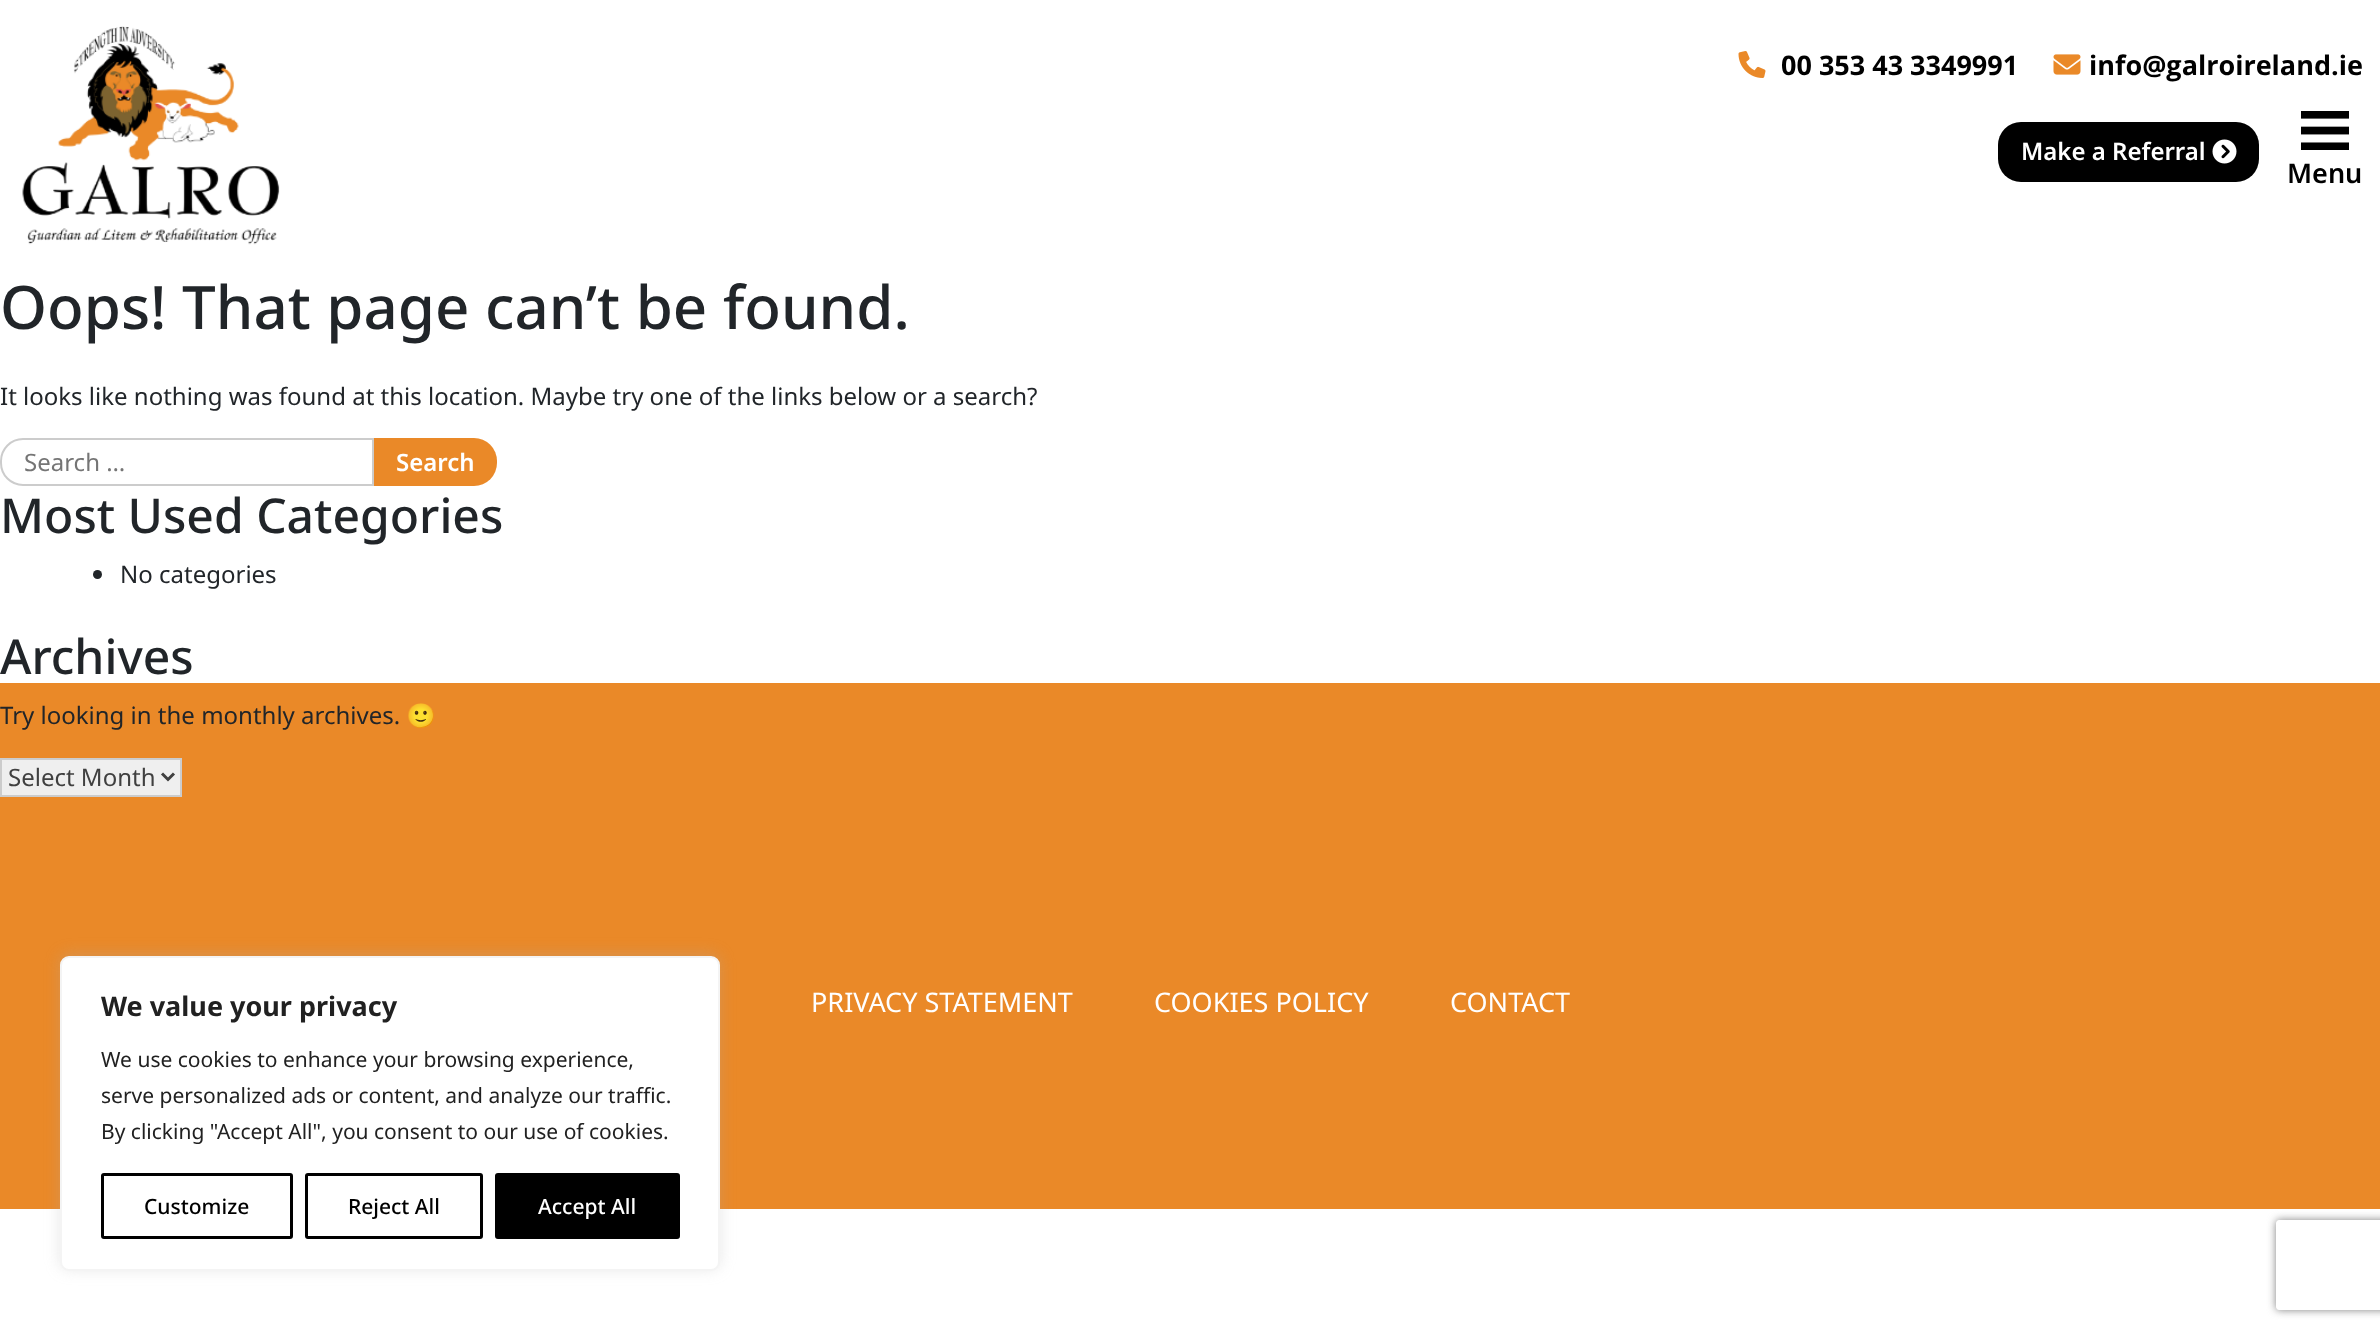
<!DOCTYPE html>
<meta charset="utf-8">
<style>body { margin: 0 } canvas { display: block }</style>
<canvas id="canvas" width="2380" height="1330"></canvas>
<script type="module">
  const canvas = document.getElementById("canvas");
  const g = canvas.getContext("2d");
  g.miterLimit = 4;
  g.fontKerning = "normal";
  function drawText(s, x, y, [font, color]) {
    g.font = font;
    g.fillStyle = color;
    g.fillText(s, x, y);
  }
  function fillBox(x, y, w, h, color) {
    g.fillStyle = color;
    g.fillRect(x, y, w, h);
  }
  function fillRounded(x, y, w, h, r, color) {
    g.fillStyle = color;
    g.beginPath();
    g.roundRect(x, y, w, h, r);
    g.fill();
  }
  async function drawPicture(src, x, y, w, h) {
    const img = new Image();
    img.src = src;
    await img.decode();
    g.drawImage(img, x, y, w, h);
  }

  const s1 = ["bold 27px Open Sans", "#000000"];
  const s2 = ["600 24px Noto Sans", "#FFFFFF"];
  const s3 = ["600 27px Noto Sans", "#000000"];
  const s4 = ["500 60px Noto Sans", "#212529"];
  const s5 = ["24px Noto Sans", "#212529"];
  const s6 = ["24px Noto Sans", "#757575"];
  const s7 = ["500 48px Noto Sans", "#212529"];
  const s8 = ["24px Noto Color Emoji", "#212529"];
  const s9 = ["24px Noto Sans", "#404040"];
  const s10 = ["27px Noto Sans", "#FFFFFF"];
  const s11 = ["bold 27px Noto Sans", "#212121"];
  const s12 = ["21px Noto Sans", "#212121"];
  const s13 = ["500 21px Noto Sans", "#000000"];
  const s14 = ["500 21px Noto Sans", "#FFFFFF"];

  fillBox(0, 0, 2380, 1330, "#FFFFFF");
  await drawPicture("pic1.png", 22, 26, 258, 219);
  await drawPicture("pic2.png", 1738, 51, 28, 27);
  drawText("00 353 43 3349991", 1781, 75, s1);
  await drawPicture("pic3.png", 2053, 54, 28, 21);
  drawText("info@galroireland.ie", 2089, 75, s1);
  await drawPicture("pic6.png", 2301, 111, 48, 39);
  await drawPicture("pic4.png", 2301, 118, 48, 25);
  fillRounded(1998, 122, 261, 60, 23, "#000000");
  drawText("Make a Referral", 2021, 160, s2);
  await drawPicture("pic5.png", 2212, 139, 25, 25);
  drawText("Menu", 2287, 183, s3);
  drawText("Oops! That page can’t be found.", 0, 329, s4);
  drawText("It looks like nothing was found at this location. Maybe try one of the links below or a search?", 0, 405, s5);
  g.beginPath();
  g.roundRect(1, 439, 372, 46, [22, 0, 0, 22]);
  g.strokeStyle = "#CCCCCC";
  g.lineWidth = 2;
  g.stroke();
  drawText("Search …", 24, 471, s6);
  g.fillStyle = "#EA8928";
  g.beginPath();
  g.roundRect(374, 438, 123, 48, [0, 23, 23, 0]);
  g.fill();
  drawText("Search", 396, 471, s2);
  drawText("Most Used Categories", 0, 533, s7);
  g.beginPath();
  g.arc(97.5, 574.5, 4.5, 0, Math.PI * 2);
  g.fill();
  drawText("No categories", 120, 583, s5);
  drawText("Archives", 0, 674, s7);
  fillBox(0, 683, 2380, 526, "#EA8928");
  drawText("Try looking in the monthly archives.", 0, 724, s5);
  drawText("🙂", 406, 724, s8);
  g.fillStyle = "#EFEFEF";
  g.beginPath();
  g.rect(1, 759, 180, 37);
  g.fill();
  g.stroke();
  g.beginPath();
  g.moveTo(162, 773.5);
  g.lineTo(168, 779.5);
  g.lineTo(174, 773.5);
  g.strokeStyle = "#404040";
  g.lineWidth = 3;
  g.stroke();
  drawText("Select Month", 8, 786, s9);
  drawText("PRIVACY STATEMENT", 811, 1012, s10);
  drawText("COOKIES POLICY", 1154, 1012, s10);
  drawText("CONTACT", 1450, 1012, s10);
  g.fillStyle = "rgba(172, 171, 171, 0.3)";
  g.filter = "blur(7.5px)";
  g.beginPath();
  g.roundRect(60, 954, 660, 315, 9);
  g.fill();
  g.filter = "none";
  g.fillStyle = "#FFFFFF";
  g.beginPath();
  g.roundRect(61, 957, 658, 313, 8);
  g.fill();
  g.strokeStyle = "#F4F4F4";
  g.lineWidth = 2;
  g.stroke();
  drawText("We value your privacy", 101, 1016, s11);
  drawText("We use cookies to enhance your browsing experience,", 101, 1067, s12);
  drawText("serve personalized ads or content, and analyze our traffic.", 101, 1103, s12);
  drawText("By clicking \"Accept All\", you consent to our use of cookies.", 101, 1139, s12);
  g.beginPath();
  g.roundRect(102.5, 1174.5, 189, 63, 1.5);
  g.strokeStyle = "#000000";
  g.lineWidth = 3;
  g.stroke();
  drawText("Customize", 144, 1214, s13);
  g.beginPath();
  g.roundRect(306.5, 1174.5, 175, 63, 1.5);
  g.stroke();
  drawText("Reject All", 348, 1214, s13);
  g.beginPath();
  g.roundRect(496.5, 1174.5, 182, 63, 1.5);
  g.fill();
  g.stroke();
  drawText("Accept All", 538, 1214, s14);
  g.save();
  g.beginPath();
  g.moveTo(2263, 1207);
  g.lineTo(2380, 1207);
  g.lineTo(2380, 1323);
  g.lineTo(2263, 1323);
  g.closePath();
  g.moveTo(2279, 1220);
  g.lineTo(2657, 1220);
  g.bezierCurveTo(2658.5, 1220, 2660, 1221.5, 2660, 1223);
  g.lineTo(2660, 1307);
  g.bezierCurveTo(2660, 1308.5, 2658.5, 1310, 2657, 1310);
  g.lineTo(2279, 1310);
  g.bezierCurveTo(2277.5, 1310, 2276, 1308.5, 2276, 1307);
  g.lineTo(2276, 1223);
  g.bezierCurveTo(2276, 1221.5, 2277.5, 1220, 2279, 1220);
  g.closePath();
  g.clip("evenodd");
  g.fillStyle = "#808080";
  g.filter = "blur(4px)";
  g.beginPath();
  g.roundRect(2276, 1220, 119, 90, 3);
  g.fill();
  g.filter = "none";
  g.restore();
</script>
